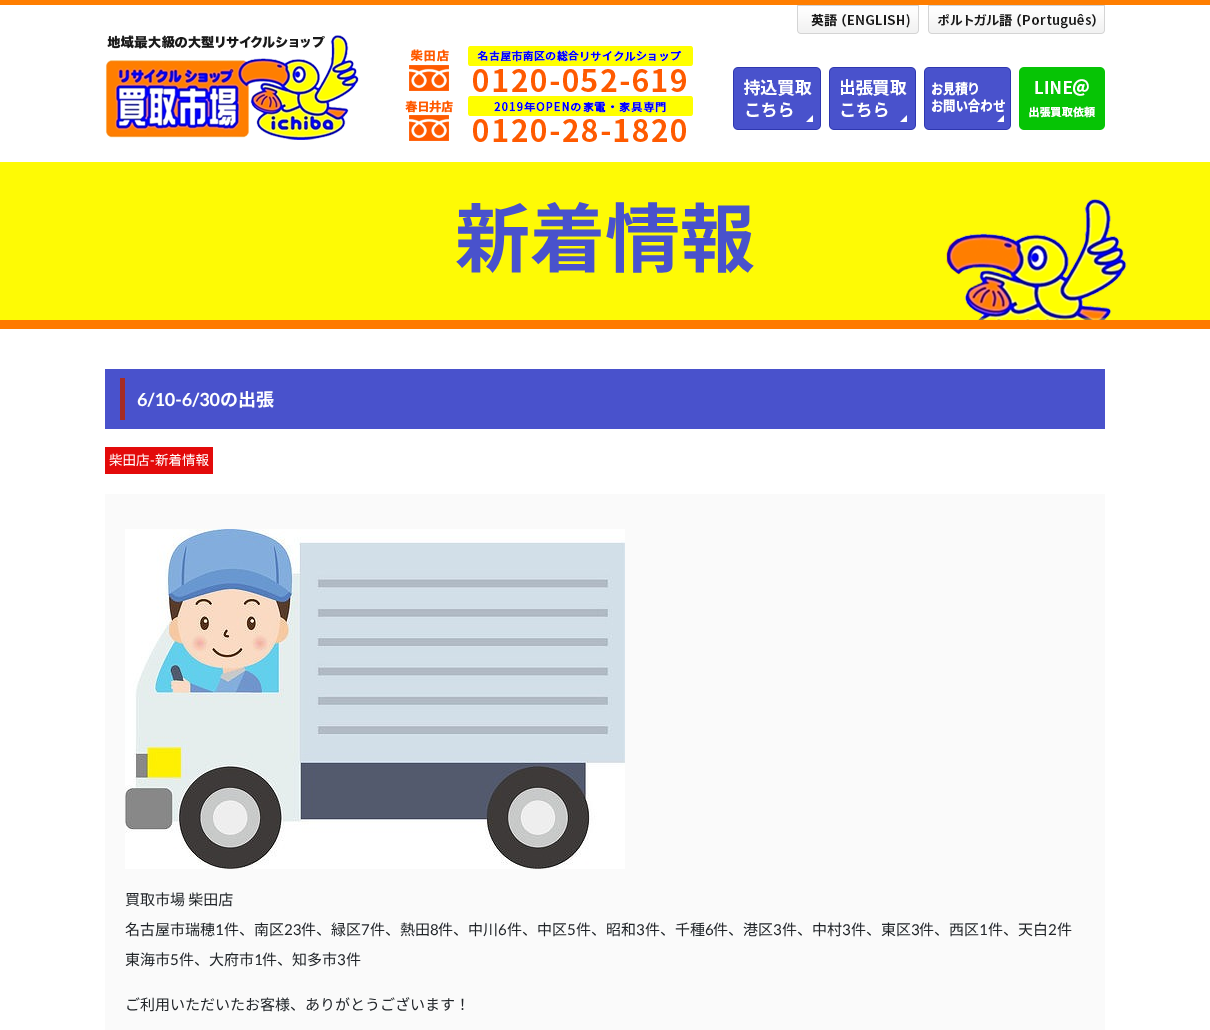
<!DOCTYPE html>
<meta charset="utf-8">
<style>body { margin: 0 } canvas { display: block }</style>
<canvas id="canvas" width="1210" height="1030"></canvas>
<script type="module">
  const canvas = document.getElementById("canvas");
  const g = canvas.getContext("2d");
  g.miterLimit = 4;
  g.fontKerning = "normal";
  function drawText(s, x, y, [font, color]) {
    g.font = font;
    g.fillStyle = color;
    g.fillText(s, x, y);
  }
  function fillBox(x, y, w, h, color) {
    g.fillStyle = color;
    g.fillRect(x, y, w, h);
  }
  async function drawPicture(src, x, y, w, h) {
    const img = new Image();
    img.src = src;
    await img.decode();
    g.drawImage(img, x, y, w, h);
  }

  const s1 = ["bold 75px Noto Sans JP", "#4952CC"];
  const s2 = ["bold 18px Lato", "#FFFFFF"];
  const s3 = ["bold 18px Noto Sans JP", "#FFFFFF"];
  const s4 = ["13.5px Noto Sans JP", "#FFFFFF"];
  const s5 = ["13.5px Lato", "#FFFFFF"];
  const s6 = ["15px Noto Sans JP", "#212529"];
  const s7 = ["15px Lato", "#212529"];

  fillBox(0, 0, 1210, 1030, "#FFFFFF");
  fillBox(0, 0, 1210, 5, "#FF7E00");
  await drawPicture("pic1.png", 797, 5, 122, 29);
  await drawPicture("pic2.png", 928, 5, 177, 29);
  await drawPicture("pic3.png", 105, 35, 254, 105);
  await drawPicture("pic4.png", 405, 46, 288, 96);
  await drawPicture("pic5.png", 733, 67, 88, 63);
  await drawPicture("pic6.png", 829, 67, 87, 63);
  await drawPicture("pic7.png", 924, 67, 87, 63);
  await drawPicture("pic8.png", 1019, 67, 86, 63);
  fillBox(0, 162, 1210, 158, "#FEFA05");
  await drawPicture("pic9.png", 946, 199, 181, 121);
  fillBox(0, 320, 1210, 9, "#FF7A00");
  drawText("新着情報", 455, 266, s1);
  fillBox(105, 369, 1000, 60, "#4952CC");
  fillBox(120, 378, 5, 42, "#A62C24");
  drawText("6/10-6/30", 137, 406, s2);
  drawText("の出張", 220, 406, s3);
  fillBox(105, 447, 108, 27, "#E30A0A");
  drawText("柴田店", 109, 465, s4);
  drawText("-", 150, 465, s5);
  drawText("新着情報", 155, 465, s4);
  fillBox(105, 494, 1000, 536, "#FAFAFA");
  await drawPicture("pic10.png", 125, 529, 500, 340);
  drawText("買取市場 柴田店", 125, 905, s6);
  drawText("名古屋市瑞穂", 125, 935, s6);
  drawText("1", 215, 935, s7);
  drawText("件、南区", 224, 935, s6);
  drawText("23", 284, 935, s7);
  drawText("件、緑区", 301, 935, s6);
  drawText("7", 361, 935, s7);
  drawText("件、熱田", 370, 935, s6);
  drawText("8", 430, 935, s7);
  drawText("件、中川", 438, 935, s6);
  drawText("6", 498, 935, s7);
  drawText("件、中区", 507, 935, s6);
  drawText("5", 567, 935, s7);
  drawText("件、昭和", 576, 935, s6);
  drawText("3", 636, 935, s7);
  drawText("件、千種", 645, 935, s6);
  drawText("6", 705, 935, s7);
  drawText("件、港区", 713, 935, s6);
  drawText("3", 773, 935, s7);
  drawText("件、中村", 782, 935, s6);
  drawText("3", 842, 935, s7);
  drawText("件、東区", 851, 935, s6);
  drawText("3", 911, 935, s7);
  drawText("件、西区", 919, 935, s6);
  drawText("1", 979, 935, s7);
  drawText("件、天白", 988, 935, s6);
  drawText("2", 1048, 935, s7);
  drawText("件", 1057, 935, s6);
  drawText("東海市", 125, 965, s6);
  drawText("5", 170, 965, s7);
  drawText("件、大府市", 179, 965, s6);
  drawText("1", 254, 965, s7);
  drawText("件、知多市", 262, 965, s6);
  drawText("3", 337, 965, s7);
  drawText("件", 346, 965, s6);
  drawText("ご利用いただいたお客様、ありがとうございます！", 125, 1010, s6);
</script>
